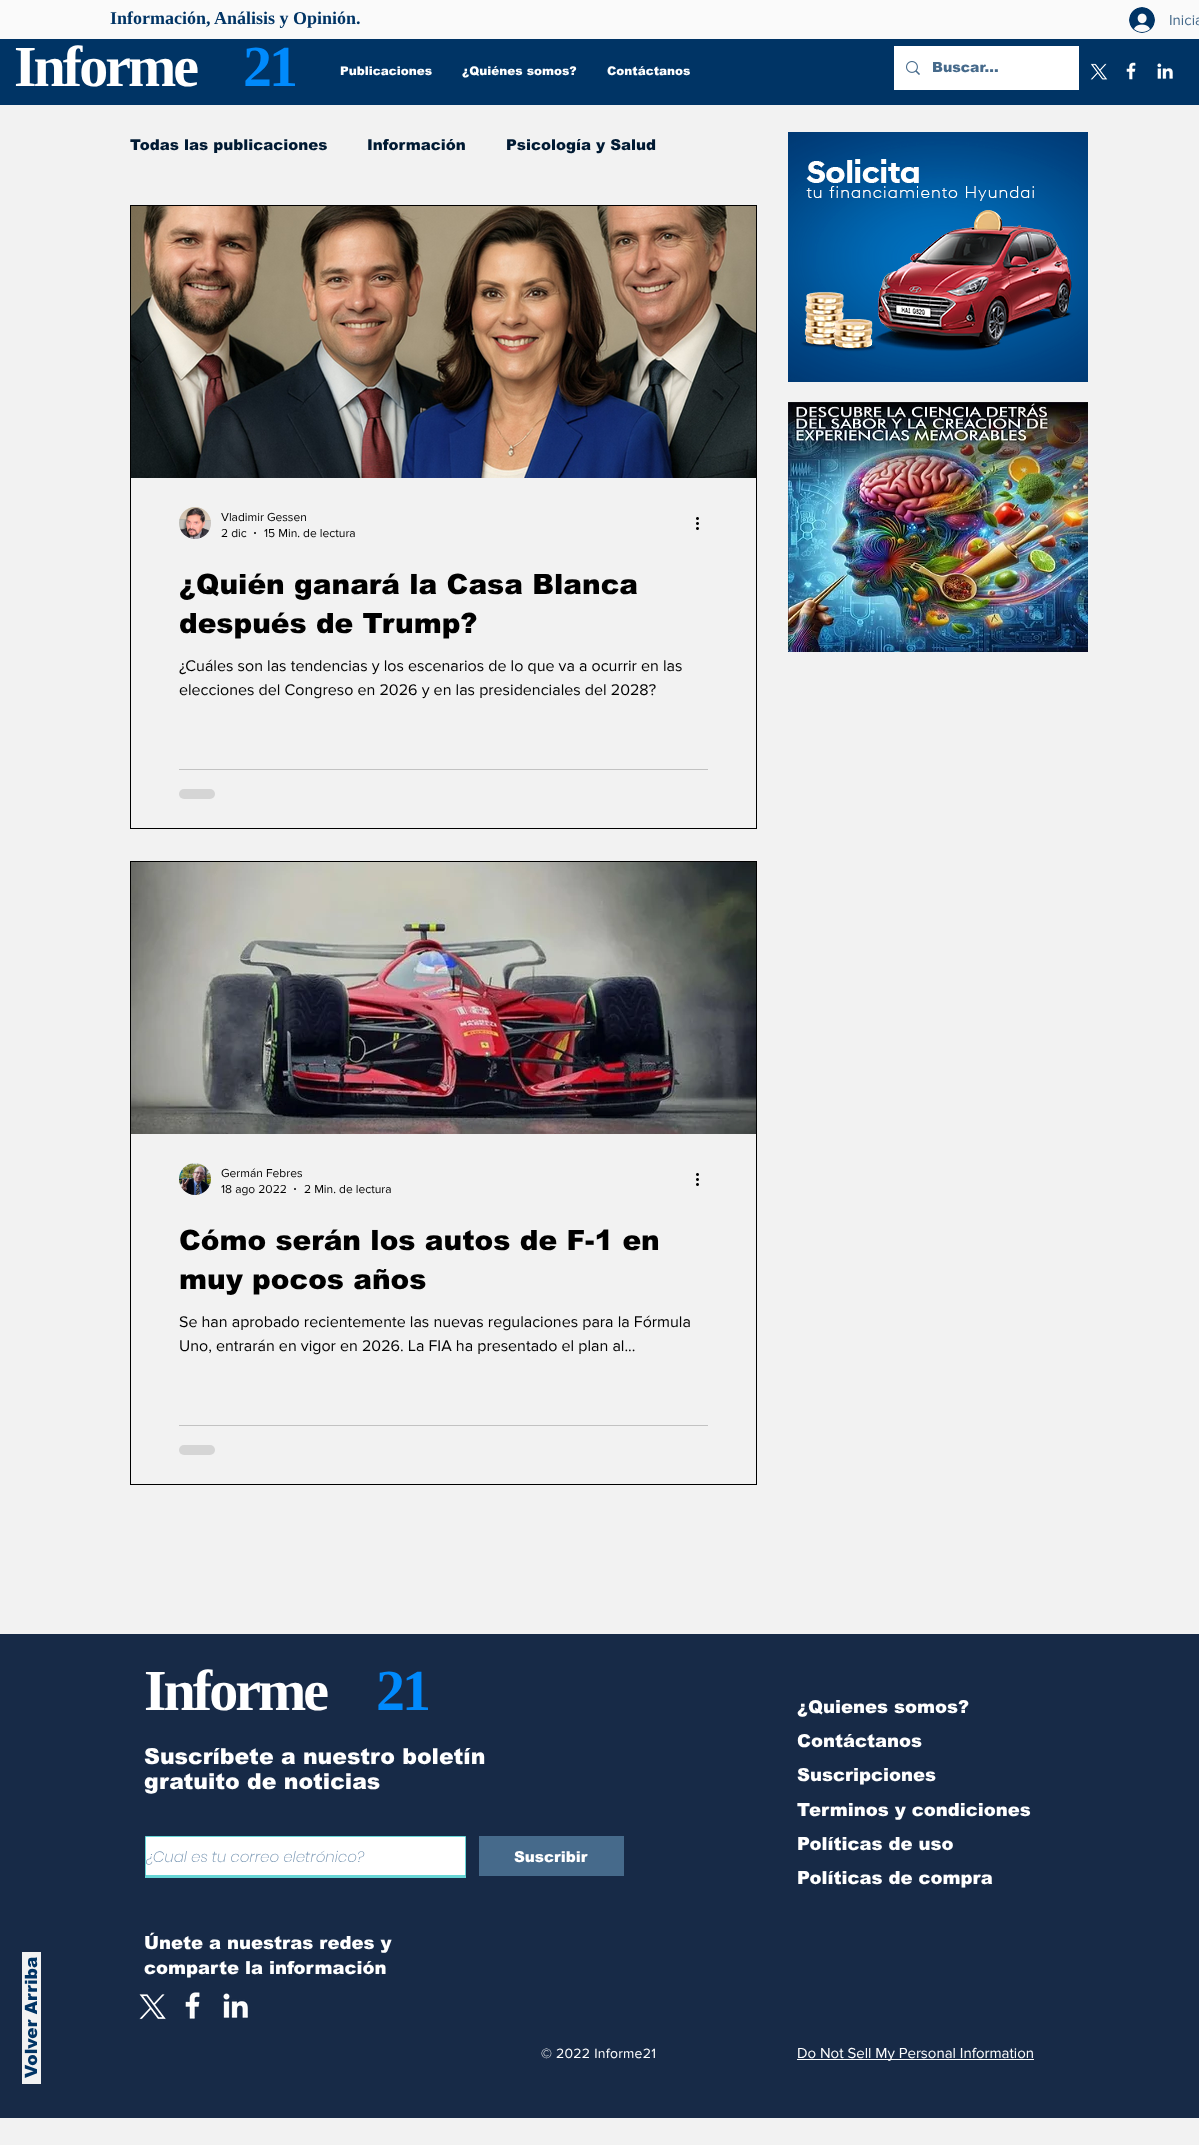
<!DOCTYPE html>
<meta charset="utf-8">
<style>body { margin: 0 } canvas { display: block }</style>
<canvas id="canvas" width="1199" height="2145"></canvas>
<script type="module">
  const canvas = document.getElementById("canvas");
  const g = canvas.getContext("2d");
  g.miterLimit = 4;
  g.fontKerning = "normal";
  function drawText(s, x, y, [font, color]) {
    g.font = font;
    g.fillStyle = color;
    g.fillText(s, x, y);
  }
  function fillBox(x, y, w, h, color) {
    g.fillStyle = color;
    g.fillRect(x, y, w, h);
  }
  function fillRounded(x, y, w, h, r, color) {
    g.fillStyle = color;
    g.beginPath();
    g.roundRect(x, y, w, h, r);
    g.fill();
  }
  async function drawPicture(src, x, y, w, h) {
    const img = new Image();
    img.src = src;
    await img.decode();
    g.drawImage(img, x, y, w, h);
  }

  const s1 = ["bold 18px Liberation Serif", "#003465"];
  const s2 = ["15px 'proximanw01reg'", "#466A8B"];
  const s3 = ["bold 58px Liberation Serif", "#FFFFFF"];
  const s4 = ["bold 58px Liberation Serif", "#008AFC"];
  const s5 = ["900 12px arial", "#FFFFFF"];
  const s6 = ["900 14px arial", "#466A8B"];
  const s7 = ["900 15px arial", "#001A33"];
  const s8 = ["12px 'proximanw01reg'", "#000000"];
  const s9 = ["900 28px arial", "#000000"];
  const s10 = ["16px 'proximanw01reg'", "#000000"];
  const s11 = ["900 22px arial", "#FFFFFF"];
  const s12 = ["900 18px arial", "#FFFFFF"];
  const s13 = ["italic 200 15px Poppins", "#7795B2"];
  const s14 = ["900 15px arial", "#FFFFFF"];
  const s15 = ["14px 'proximanw01reg'", "#FFFFFF"];
  const s16 = ["15px 'proximanw01reg'", "#FFFFFF"];

  fillBox(0, 0, 1199, 2145, "#F2F2F2");
  fillBox(0, 0, 1199, 39, "#FAFAFA");
  drawText("Información, Análisis y Opinión.", 110, 24, s1);
  await drawPicture("pic1.png", 1129, 7, 26, 26);
  drawText("Inicia", 1169, 25, s2);
  fillBox(0, 39, 1199, 66, "#003465");
  g.letterSpacing = "-3px";
  drawText("Informe", 14, 86, s3);
  drawText("21", 243, 86, s4);
  g.letterSpacing = "0px";
  drawText("Publicaciones", 340, 75, s5);
  drawText("¿Quiénes somos?", 462, 75, s5);
  drawText("Contáctanos", 607, 75, s5);
  fillBox(894, 46, 185, 44, "#FFFFFF");
  await drawPicture("pic2.png", 906, 61, 14, 14);
  drawText("Buscar...", 932, 72, s6);
  await drawPicture("pic3.png", 1090, 63, 18, 17);
  await drawPicture("pic4.png", 1126, 62, 10, 18);
  await drawPicture("pic5.png", 1157, 63, 16, 16);
  drawText("Todas las publicaciones", 130, 150, s7);
  drawText("Información", 367, 150, s7);
  drawText("Psicología y Salud", 506, 150, s7);
  g.strokeStyle = "#000000";
  g.strokeRect(130.5, 205.5, 626, 623);
  await drawPicture("pic6.png", 131, 206, 625, 272);
  await drawPicture("pic7.png", 179, 507, 32, 32);
  drawText("Vladimir Gessen", 221, 521, s8);
  drawText("2 dic", 221, 537, s8);
  g.beginPath();
  g.arc(255, 533, 1, 0, Math.PI * 2);
  g.fill();
  drawText("15 Min. de lectura", 264, 537, s8);
  await drawPicture("pic8.png", 696, 517, 3, 13);
  drawText("¿Quién ganará la Casa Blanca", 179, 594, s9);
  drawText("después de Trump?", 179, 633, s9);
  drawText("¿Cuáles son las tendencias y los escenarios de lo que va a ocurrir en las", 179, 671, s10);
  drawText("elecciones del Congreso en 2026 y en las presidenciales del 2028?", 179, 695, s10);
  fillBox(179, 769, 529, 1, "#C2C2C2");
  fillRounded(179, 789, 36, 10, 5, "#D5D5D5");
  g.strokeRect(130.5, 861.5, 626, 623);
  await drawPicture("pic9.png", 131, 862, 625, 272);
  await drawPicture("pic10.png", 179, 1163, 32, 32);
  drawText("Germán Febres", 221, 1177, s8);
  drawText("18 ago 2022", 221, 1193, s8);
  g.beginPath();
  g.arc(295, 1189, 1, 0, Math.PI * 2);
  g.fill();
  drawText("2 Min. de lectura", 304, 1193, s8);
  await drawPicture("pic8.png", 696, 1173, 3, 13);
  drawText("Cómo serán los autos de F-1 en", 179, 1250, s9);
  drawText("muy pocos años", 179, 1289, s9);
  drawText("Se han aprobado recientemente las nuevas regulaciones para la Fórmula", 179, 1327, s10);
  drawText("Uno, entrarán en vigor en 2026. La FIA ha presentado el plan al...", 179, 1351, s10);
  fillBox(179, 1425, 529, 1, "#C2C2C2");
  fillRounded(179, 1445, 36, 10, 5, "#D5D5D5");
  await drawPicture("pic11.png", 788, 132, 300, 250);
  await drawPicture("pic12.png", 788, 402, 300, 250);
  fillBox(0, 1634, 1199, 484, "#172A47");
  fillBox(22, 1952, 19, 132, "#F2F2F2");
  g.font = "900 17px arial";
  g.fillStyle = "#003465";
  g.save();
  g.translate(37, 2078);
  g.rotate(-90 * Math.PI / 180);
  g.fillText("Volver Arriba", 0, 0);
  g.restore();
  g.letterSpacing = "-3px";
  drawText("Informe", 144, 1710, s3);
  drawText("21", 376, 1710, s4);
  g.letterSpacing = "0px";
  drawText("Suscríbete a nuestro boletín", 144, 1764, s11);
  drawText("gratuito de noticias", 144, 1789, s11);
  drawText("¿Quienes somos?", 797, 1713, s12);
  drawText("Contáctanos", 797, 1747, s12);
  drawText("Suscripciones", 797, 1781, s12);
  drawText("Terminos y condiciones", 797, 1816, s12);
  drawText("Políticas de uso", 797, 1850, s12);
  drawText("Políticas de compra", 797, 1884, s12);
  fillBox(145, 1876, 321, 2, "#67D6D6");
  g.fillStyle = "#FFFFFF";
  g.beginPath();
  g.rect(145.5, 1836.5, 320, 39);
  g.fill();
  g.strokeStyle = "#67D6D6";
  g.stroke();
  g.save();
  g.beginPath();
  g.rect(146, 1845, 316, 23);
  g.clip();
  drawText("¿Cual es tu correo eletrónico?", 146, 1862, s13);
  g.restore();
  fillBox(479, 1836, 145, 40, "#466A8B");
  drawText("Suscribir", 514, 1862, s14);
  drawText("Únete a nuestras redes y", 144, 1949, s12);
  drawText("comparte la información", 144, 1974, s12);
  await drawPicture("pic13.png", 139, 1994, 27, 26);
  await drawPicture("pic14.png", 185, 1992, 15, 27);
  await drawPicture("pic15.png", 223, 1993, 25, 25);
  g.letterSpacing = "0.25px";
  drawText("© 2022 Informe21", 541, 2058, s15);
  fillBox(797, 2059, 237, 1, "#FFFFFF");
  g.letterSpacing = "0px";
  drawText("Do Not Sell My Personal Information", 797, 2058, s16);
</script>
